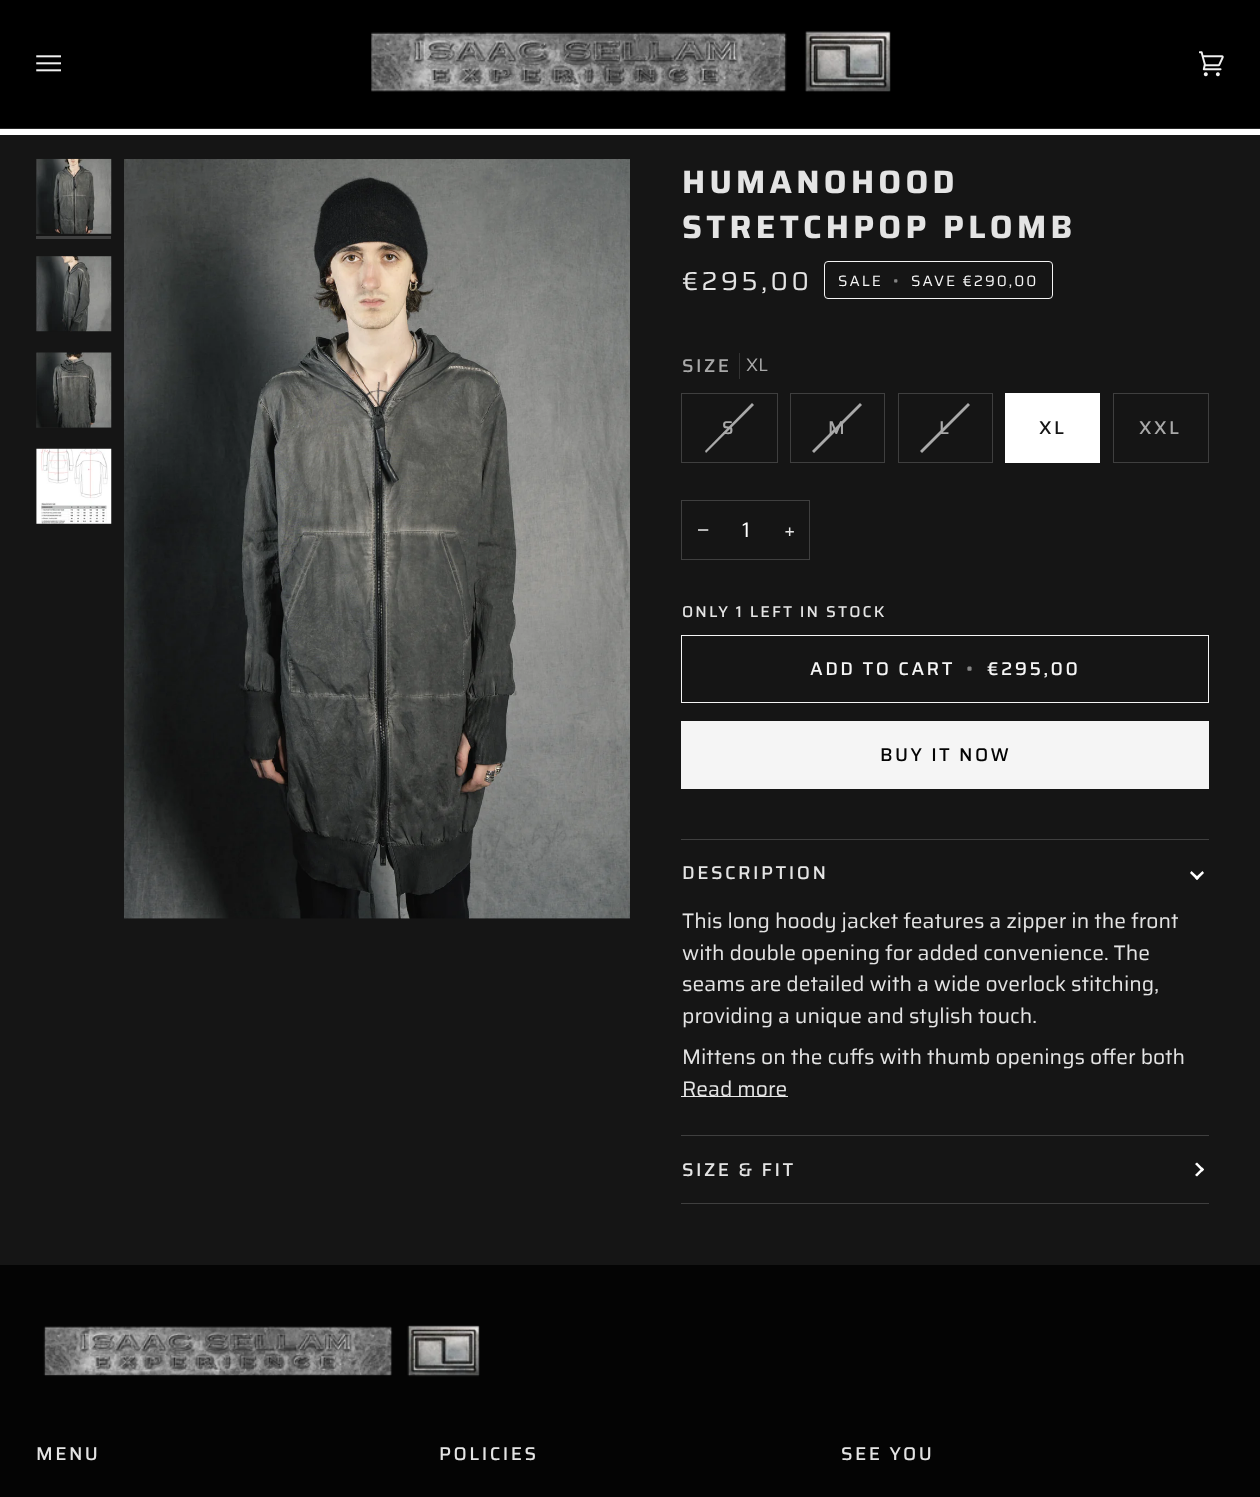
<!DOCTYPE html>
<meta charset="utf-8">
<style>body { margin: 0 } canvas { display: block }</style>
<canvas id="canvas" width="1260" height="1497"></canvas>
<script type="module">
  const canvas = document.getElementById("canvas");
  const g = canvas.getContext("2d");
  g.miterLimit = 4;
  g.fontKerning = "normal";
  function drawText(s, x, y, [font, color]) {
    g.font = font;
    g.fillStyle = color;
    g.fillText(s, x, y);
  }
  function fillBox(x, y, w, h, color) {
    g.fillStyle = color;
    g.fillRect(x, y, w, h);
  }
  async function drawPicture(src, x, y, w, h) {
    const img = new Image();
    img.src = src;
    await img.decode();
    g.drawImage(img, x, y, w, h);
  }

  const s1 = ["bold 32.5px Saira", "#E4E4E4"];
  const s2 = ["26px Saira", "#E4E4E4"];
  const s3 = ["15px Saira", "#F5F5F5"];
  const s4 = ["15px Saira", "#858585"];
  const s5 = ["500 18.5px Saira", "#A9A9A9"];
  const s6 = ["18px Saira", "#A9A9A9"];
  const s7 = ["500 18.5px Saira", "#151515"];
  const s8 = ["21px Liberation Sans", "#E4E4E4"];
  const s9 = ["21px Saira", "#FFFFFF"];
  const s10 = ["21px Saira", "#E4E4E4"];
  const s11 = ["500 15.75px Saira", "#E4E4E4"];
  const s12 = ["500 18.5px Saira", "#F5F5F5"];
  const s13 = ["500 18.5px Saira", "#858585"];
  const s14 = ["500 18.5px Saira", "#030303"];
  const s15 = ["500 18.5px Saira", "#E4E4E4"];

  fillBox(0, 0, 1260, 1497, "#FFFFFF");
  fillBox(0, 0, 1260, 128, "#000000");
  fillBox(0, 128, 1260, 1, "#282828");
  await drawPicture("pic1.png", 36, 55, 25, 17);
  await drawPicture("pic2.png", 371, 31, 520, 61);
  await drawPicture("pic3.png", 1199, 51, 25, 26);
  fillBox(0, 135, 1260, 1130, "#151515");
  fillBox(36, 159, 75, 75, "#202020");
  await drawPicture("pic4.png", 36, 158, 76, 76);
  fillBox(36, 236, 75, 3, "#3F3F3F");
  fillBox(36, 256, 75, 75, "#202020");
  await drawPicture("pic5.png", 36, 256, 76, 76);
  fillBox(36, 353, 75, 75, "#202020");
  await drawPicture("pic6.png", 36, 352, 76, 76);
  fillBox(36, 449, 75, 75, "#202020");
  await drawPicture("pic7.png", 36, 448, 76, 76);
  await drawPicture("pic8.png", 124, 159, 506, 760);
  g.letterSpacing = "4.25px";
  drawText("HUMANOHOOD", 682, 193, s1);
  drawText("STRETCHPOP PLOMB", 682, 238, s1);
  g.letterSpacing = "3.5px";
  drawText("€295,00", 682, 290, s2);
  g.beginPath();
  g.roundRect(824.5, 261.5, 228, 37, 3.5);
  g.strokeStyle = "#F5F5F5";
  g.stroke();
  g.letterSpacing = "2px";
  drawText("SALE", 838, 286, s3);
  drawText("•", 893, 286, s4);
  drawText("SAVE €290,00", 911, 286, s3);
  g.letterSpacing = "2.5px";
  drawText("SIZE", 682, 372, s5);
  fillBox(739, 353, 1, 26, "#333333");
  g.letterSpacing = "0px";
  drawText("XL", 746, 371, s6);
  g.strokeStyle = "#3F3F3F";
  g.strokeRect(681.5, 393.5, 96, 69);
  g.beginPath();
  g.moveTo(752, 403);
  g.lineTo(754, 405);
  g.lineTo(706, 453);
  g.lineTo(705, 451);
  g.closePath();
  g.fill();
  g.letterSpacing = "2.5px";
  drawText("S", 722, 434, s5);
  g.strokeRect(790.5, 393.5, 94, 69);
  g.beginPath();
  g.moveTo(860, 403);
  g.lineTo(862, 405);
  g.lineTo(814, 453);
  g.lineTo(812, 451);
  g.closePath();
  g.fill();
  drawText("M", 828, 434, s5);
  g.strokeRect(898.5, 393.5, 94, 69);
  g.beginPath();
  g.moveTo(968, 403);
  g.lineTo(970, 405);
  g.lineTo(922, 453);
  g.lineTo(920, 451);
  g.closePath();
  g.fill();
  drawText("L", 939, 434, s5);
  fillBox(1005, 393, 95, 70, "#FFFFFF");
  drawText("XL", 1039, 434, s7);
  g.strokeRect(1113.5, 393.5, 95, 69);
  drawText("XXL", 1139, 434, s5);
  g.strokeRect(681.5, 500.5, 128, 59);
  g.letterSpacing = "0px";
  drawText("−", 697, 537, s8);
  drawText("1", 742, 537, s9);
  drawText("+", 784, 537, s10);
  g.letterSpacing = "2.1px";
  drawText("ONLY 1 LEFT IN STOCK", 682, 617, s11);
  g.strokeStyle = "#F5F5F5";
  g.strokeRect(681.5, 635.5, 527, 67);
  g.letterSpacing = "2.5px";
  drawText("ADD TO CART", 810, 675, s12);
  drawText("•", 966, 675, s13);
  drawText("€295,00", 987, 675, s12);
  fillBox(681, 721, 528, 68, "#F5F5F5");
  drawText("BUY IT NOW", 880, 761, s14);
  fillBox(681, 839, 528, 1, "#3F3F3F");
  fillBox(681, 1135, 528, 1, "#3F3F3F");
  drawText("DESCRIPTION", 682, 879, s15);
  g.fillStyle = "#FFFFFF";
  g.beginPath();
  g.moveTo(1195, 878);
  g.lineTo(1202.5, 871);
  g.lineTo(1204, 873);
  g.lineTo(1197, 880);
  g.closePath();
  g.fill();
  g.beginPath();
  g.moveTo(1190, 873);
  g.lineTo(1191.5, 871);
  g.lineTo(1199, 878);
  g.lineTo(1197, 880);
  g.closePath();
  g.fill();
  g.letterSpacing = "0px";
  drawText("This long hoody jacket features a zipper in the front", 682, 928, s10);
  drawText("with double opening for added convenience. The", 682, 960, s10);
  drawText("seams are detailed with a wide overlock stitching,", 682, 991, s10);
  drawText("providing a unique and stylish touch.", 682, 1023, s10);
  drawText("Mittens on the cuffs with thumb openings offer both", 682, 1064, s10);
  fillBox(681, 1096, 107, 1, "#E9E9E9");
  drawText("Read more", 682, 1096, s10);
  fillBox(681, 1203, 528, 1, "#3F3F3F");
  g.letterSpacing = "2.5px";
  drawText("SIZE & FIT", 682, 1176, s15);
  g.fillStyle = "#FFFFFF";
  g.beginPath();
  g.moveTo(1202.5, 1171.5);
  g.lineTo(1195, 1164);
  g.lineTo(1197, 1162.5);
  g.lineTo(1204, 1169.5);
  g.closePath();
  g.fill();
  g.beginPath();
  g.moveTo(1197, 1176.5);
  g.lineTo(1195, 1175);
  g.lineTo(1202.5, 1167.5);
  g.lineTo(1204, 1169.5);
  g.closePath();
  g.fill();
  fillBox(0, 1265, 1260, 232, "#040404");
  await drawPicture("pic9.png", 43, 1325, 437, 52);
  drawText("MENU", 36, 1460, s15);
  drawText("POLICIES", 439, 1460, s15);
  drawText("SEE YOU", 841, 1460, s15);
</script>
